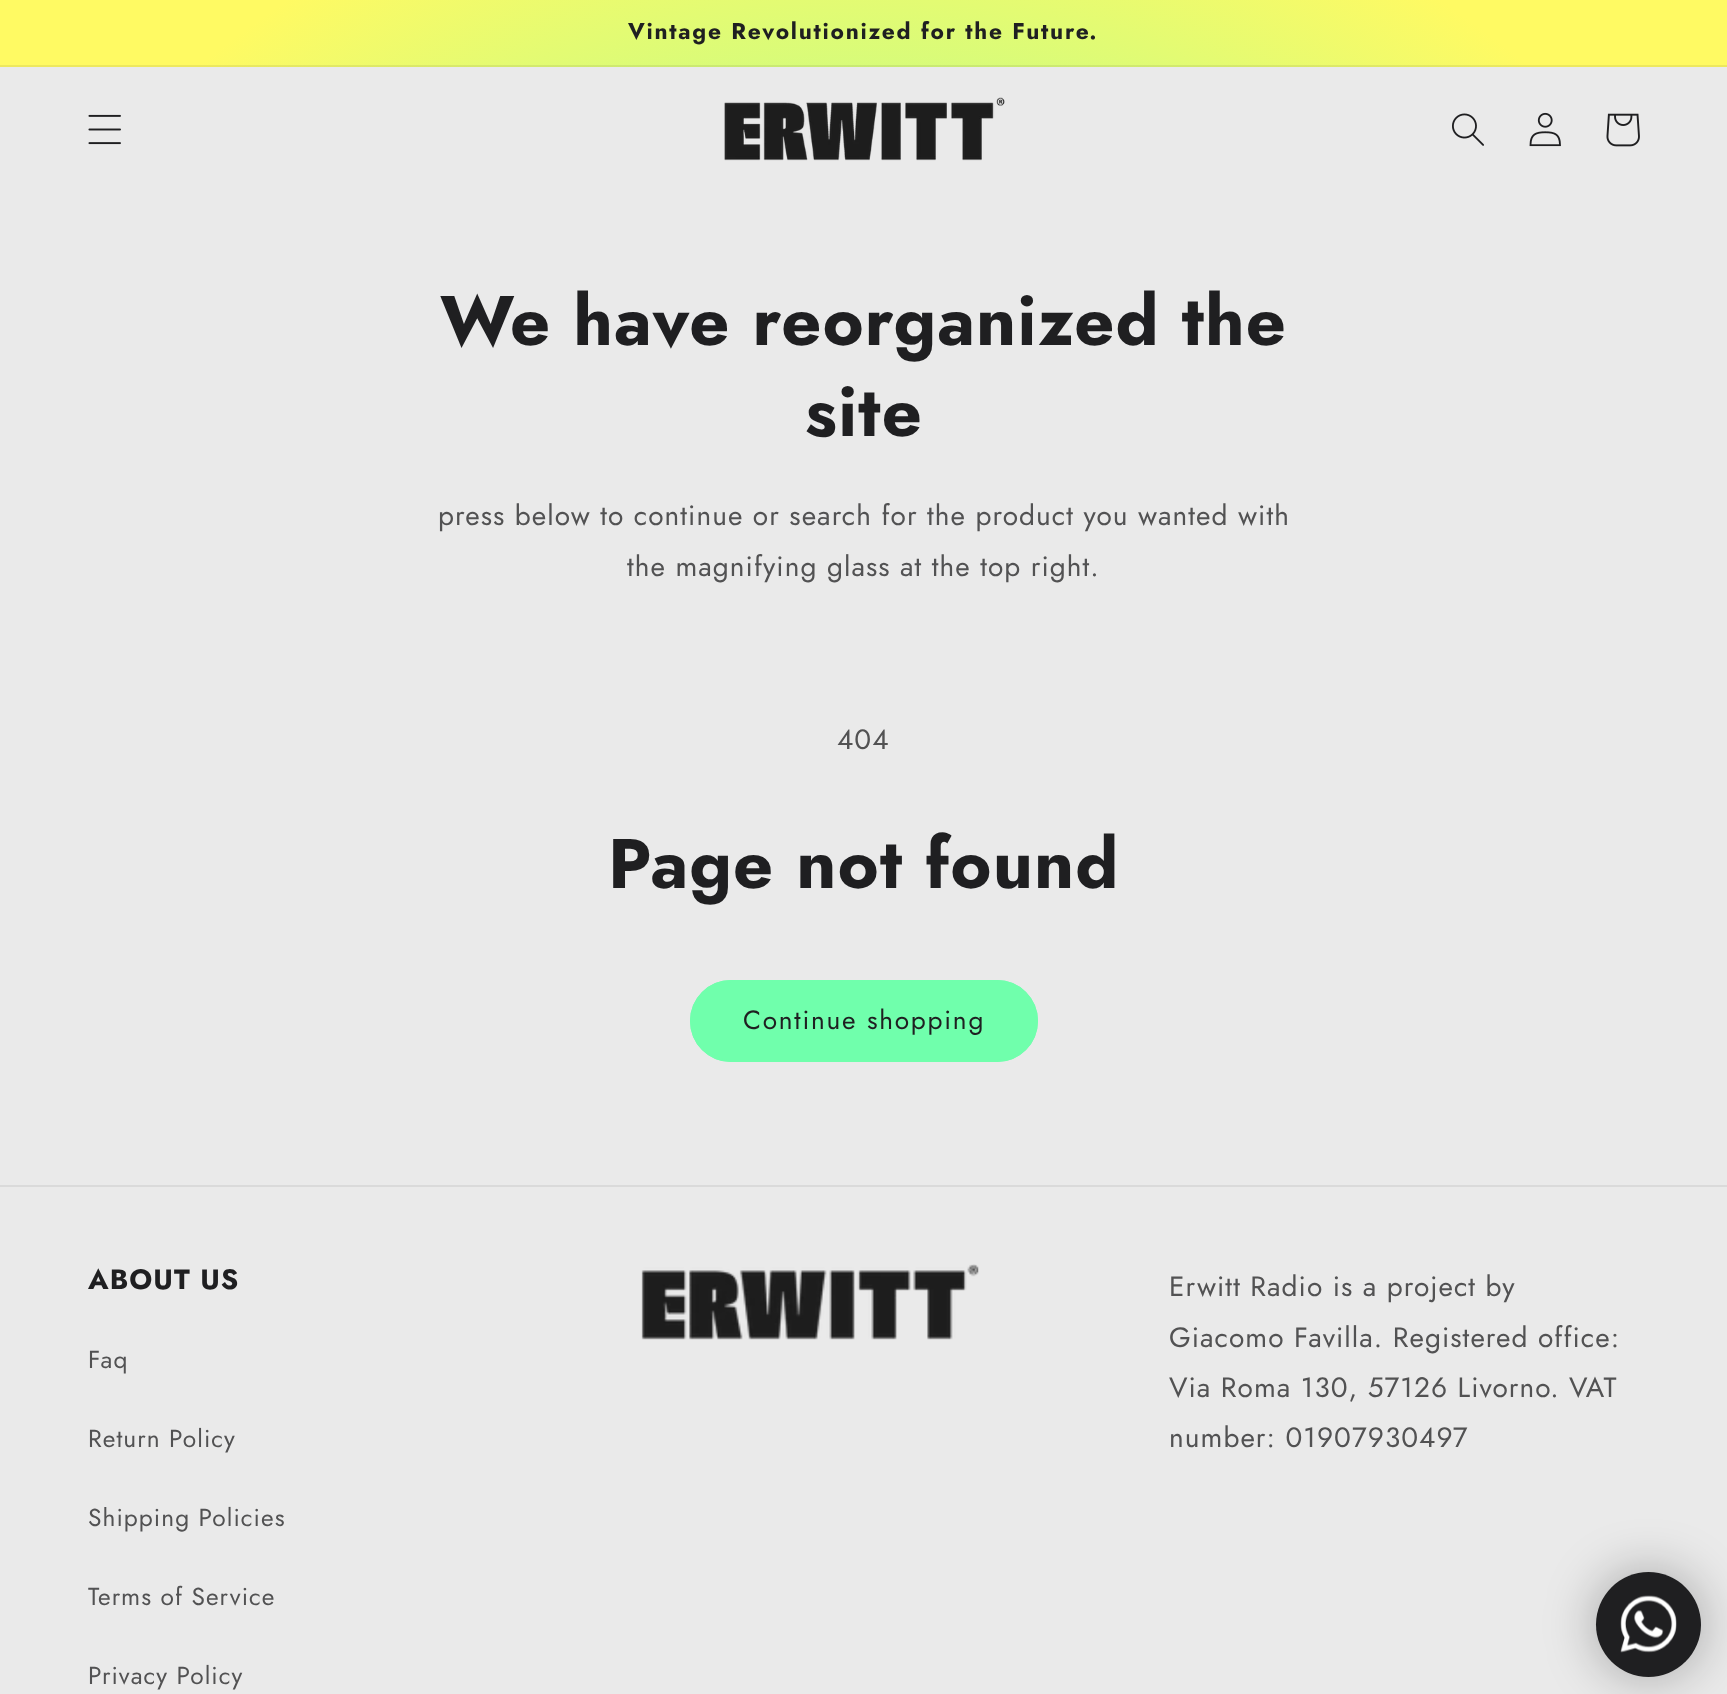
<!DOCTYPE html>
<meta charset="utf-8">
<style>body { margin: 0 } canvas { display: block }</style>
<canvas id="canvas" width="1727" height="1694"></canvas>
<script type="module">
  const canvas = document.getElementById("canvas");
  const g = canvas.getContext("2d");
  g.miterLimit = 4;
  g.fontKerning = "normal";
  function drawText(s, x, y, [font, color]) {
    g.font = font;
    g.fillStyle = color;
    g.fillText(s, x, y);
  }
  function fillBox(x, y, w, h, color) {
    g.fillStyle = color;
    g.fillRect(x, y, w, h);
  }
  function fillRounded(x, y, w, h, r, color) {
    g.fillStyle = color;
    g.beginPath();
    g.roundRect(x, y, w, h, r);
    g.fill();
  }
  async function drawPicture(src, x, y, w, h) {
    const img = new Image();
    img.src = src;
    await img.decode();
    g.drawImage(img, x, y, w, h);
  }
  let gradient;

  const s1 = ["bold 22.75px Jost", "#1F1F21"];
  const s2 = ["bold 70px Jost", "#1F1F21"];
  const s3 = ["28px Jost", "#525253"];
  const s4 = ["26.25px Jost", "#1F1F21"];
  const s5 = ["bold 28px Jost", "#1F1F21"];
  const s6 = ["24.5px Jost", "#525253"];

  fillBox(0, 0, 1727, 1694, "#EAEAEA");
  gradient = g.createRadialGradient(864, 863.26, 0, 864, 863.26, 1221);
  gradient.addColorStop(0.14, "#72FFB3");
  gradient.addColorStop(0.85, "#FFFA63");
  g.fillStyle = gradient;
  g.beginPath();
  g.rect(0, 0, 1727, 65);
  g.save();
  g.clip();
  g.scale(1, 1198 / 1221);
  g.fillRect(0, 0, 1727, 1727);
  g.restore();
  gradient = g.createRadialGradient(864, 863.26, 0, 864, 863.26, 1221);
  gradient.addColorStop(0.14, "#6BEDA7");
  gradient.addColorStop(0.85, "#EDE85E");
  g.fillStyle = gradient;
  g.beginPath();
  g.rect(0, 65, 1727, 2);
  g.save();
  g.clip();
  g.scale(1, 1198 / 1221);
  g.fillRect(0, 0, 1727, 1727);
  g.restore();
  g.letterSpacing = "1.75px";
  drawText("Vintage Revolutionized for the Future.", 628, 39, s1);
  await drawPicture("pic1.png", 88, 114, 33, 31);
  await drawPicture("pic2.png", 724, 97, 281, 64);
  await drawPicture("pic3.png", 1452, 113, 32, 33);
  await drawPicture("pic4.png", 1529, 112, 32, 35);
  await drawPicture("pic5.png", 1606, 113, 34, 34);
  g.letterSpacing = "1.05px";
  drawText("We have reorganized the", 440, 345, s2);
  drawText("site", 805, 436, s2);
  drawText("press below to continue or search for the product you wanted with", 438, 525, s3);
  drawText("the magnifying glass at the top right.", 627, 576, s3);
  drawText("404", 837, 749, s3);
  drawText("Page not found", 608, 888, s2);
  fillRounded(690, 980, 348, 82, 41, "#70FFAC");
  g.beginPath();
  g.roundRect(691, 981, 346, 80, 40);
  g.strokeStyle = "#70FFAC";
  g.lineWidth = 2;
  g.stroke();
  g.letterSpacing = "1.75px";
  drawText("Continue shopping", 743, 1029, s4);
  fillBox(0, 1185, 1727, 2, "#DADADA");
  g.letterSpacing = "1.05px";
  drawText("ABOUT US", 88, 1289, s5);
  drawText("Faq", 88, 1368, s6);
  drawText("Return Policy", 88, 1447, s6);
  drawText("Shipping Policies", 88, 1526, s6);
  drawText("Terms of Service", 88, 1605, s6);
  drawText("Privacy Policy", 88, 1684, s6);
  await drawPicture("pic6.png", 641, 1264, 338, 76);
  drawText("Erwitt Radio is a project by", 1169, 1296, s3);
  drawText("Giacomo Favilla. Registered office:", 1169, 1347, s3);
  drawText("Via Roma 130, 57126 Livorno. VAT", 1169, 1397, s3);
  drawText("number: 01907930497", 1169, 1447, s3);
  g.fillStyle = "rgba(0, 0, 0, 0.3)";
  g.filter = "blur(26px)";
  g.beginPath();
  g.roundRect(1596, 1572, 105, 105, 52.5);
  g.fill();
  g.filter = "none";
  g.fillStyle = "#1F1F21";
  g.beginPath();
  g.arc(1648.5, 1624.5, 52.5, 0, Math.PI * 2);
  g.fill();
  await drawPicture("pic7.png", 1620, 1595, 57, 58);
</script>
